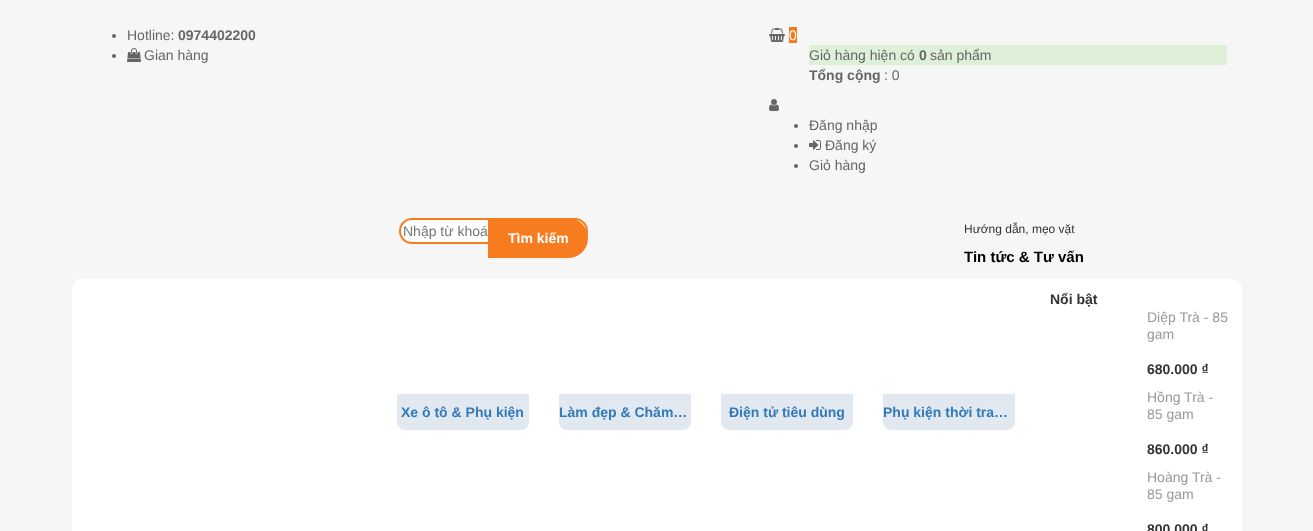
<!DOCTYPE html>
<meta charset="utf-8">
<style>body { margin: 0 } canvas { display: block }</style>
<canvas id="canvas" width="1313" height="531"></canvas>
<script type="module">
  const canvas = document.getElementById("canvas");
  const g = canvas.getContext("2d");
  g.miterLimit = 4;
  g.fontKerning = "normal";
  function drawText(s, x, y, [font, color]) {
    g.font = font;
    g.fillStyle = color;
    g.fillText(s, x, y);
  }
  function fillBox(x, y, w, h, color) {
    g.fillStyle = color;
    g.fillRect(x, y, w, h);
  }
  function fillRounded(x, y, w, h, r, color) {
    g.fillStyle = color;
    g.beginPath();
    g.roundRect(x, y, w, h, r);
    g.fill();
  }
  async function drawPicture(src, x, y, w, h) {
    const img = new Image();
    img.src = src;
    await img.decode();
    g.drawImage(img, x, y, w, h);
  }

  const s1 = ["14px Liberation Sans", "#666666"];
  const s2 = ["bold 14px Liberation Sans", "#666666"];
  const s3 = ["14px Liberation Sans", "#FFFFFF"];
  const s4 = ["14px Liberation Sans", "#757575"];
  const s5 = ["bold 14px Liberation Sans", "#FFFFFF"];
  const s6 = ["12px Liberation Sans", "#333333"];
  const s7 = ["bold 15px Liberation Sans", "#000000"];
  const s8 = ["bold 14px Liberation Sans", "#337AB7"];
  const s9 = ["bold 14px Liberation Sans", "#333333"];
  const s10 = ["14px Liberation Sans", "#999999"];

  fillBox(0, 0, 1313, 531, "#F6F6F6");
  g.fillStyle = "#666666";
  g.beginPath();
  g.arc(114, 36, 2, 0, Math.PI * 2);
  g.fill();
  drawText("Hotline:", 127, 40, s1);
  drawText("0974402200", 178, 40, s2);
  g.beginPath();
  g.arc(114, 56, 2, 0, Math.PI * 2);
  g.fill();
  await drawPicture("pic1.png", 127, 48, 14, 14);
  drawText("Gian hàng", 144, 60, s1);
  await drawPicture("pic2.png", 769, 28, 16, 14);
  fillBox(789, 27, 8, 16, "#F57B18");
  drawText("0", 789, 40, s3);
  fillBox(809, 45, 418, 20, "#DFF0D8");
  drawText("Giỏ hàng hiện có", 809, 60, s1);
  drawText("0", 919, 60, s2);
  drawText("sản phẩm", 930, 60, s1);
  drawText("Tổng cộng", 809, 80, s2);
  drawText(": 0", 884, 80, s1);
  await drawPicture("pic3.png", 769, 99, 10, 12);
  g.beginPath();
  g.arc(796, 126, 2, 0, Math.PI * 2);
  g.fill();
  drawText("Đăng nhập", 809, 130, s1);
  g.beginPath();
  g.arc(796, 146, 2, 0, Math.PI * 2);
  g.fill();
  await drawPicture("pic4.png", 809, 140, 12, 10);
  drawText("Đăng ký", 825, 150, s1);
  g.beginPath();
  g.arc(796, 166, 2, 0, Math.PI * 2);
  g.fill();
  drawText("Giỏ hàng", 809, 170, s1);
  g.fillStyle = "#FFFFFF";
  g.beginPath();
  g.roundRect(400, 219, 187, 24, 12);
  g.fill();
  g.strokeStyle = "#F77C20";
  g.lineWidth = 2;
  g.stroke();
  drawText("Nhập từ khoá", 403, 236, s4);
  g.fillStyle = "#F77C20";
  g.beginPath();
  g.roundRect(488, 218, 100, 40, [0, 20, 20, 0]);
  g.fill();
  drawText("Tìm kiếm", 508, 243, s5);
  drawText("Hướng dẫn, mẹo vặt", 964, 233, s6);
  drawText("Tin tức & Tư vấn", 964, 262, s7);
  fillRounded(72, 279, 1170, 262, 10, "#FFFFFF");
  g.fillStyle = "#E2E8F0";
  g.beginPath();
  g.roundRect(397, 394, 132, 36, [0, 0, 8, 8]);
  g.fill();
  drawText("Xe ô tô & Phụ kiện", 401, 417, s8);
  g.fillStyle = "#E2E8F0";
  g.beginPath();
  g.roundRect(559, 394, 132, 36, [0, 0, 8, 8]);
  g.fill();
  drawText("Làm đẹp & Chăm…", 559, 417, s8);
  g.fillStyle = "#E2E8F0";
  g.beginPath();
  g.roundRect(721, 394, 132, 36, [0, 0, 8, 8]);
  g.fill();
  drawText("Điện tử tiêu dùng", 729, 417, s8);
  g.fillStyle = "#E2E8F0";
  g.beginPath();
  g.roundRect(883, 394, 132, 36, [0, 0, 8, 8]);
  g.fill();
  drawText("Phụ kiện thời tra…", 883, 417, s8);
  drawText("Nổi bật", 1050, 304, s9);
  drawText("Diệp Trà - 85", 1147, 322, s10);
  drawText("gam", 1147, 339, s10);
  drawText("680.000 ₫", 1147, 374, s9);
  drawText("Hồng Trà -", 1147, 402, s10);
  drawText("85 gam", 1147, 419, s10);
  drawText("860.000 ₫", 1147, 454, s9);
  drawText("Hoàng Trà -", 1147, 482, s10);
  drawText("85 gam", 1147, 499, s10);
  drawText("800.000 ₫", 1147, 534, s9);
</script>
